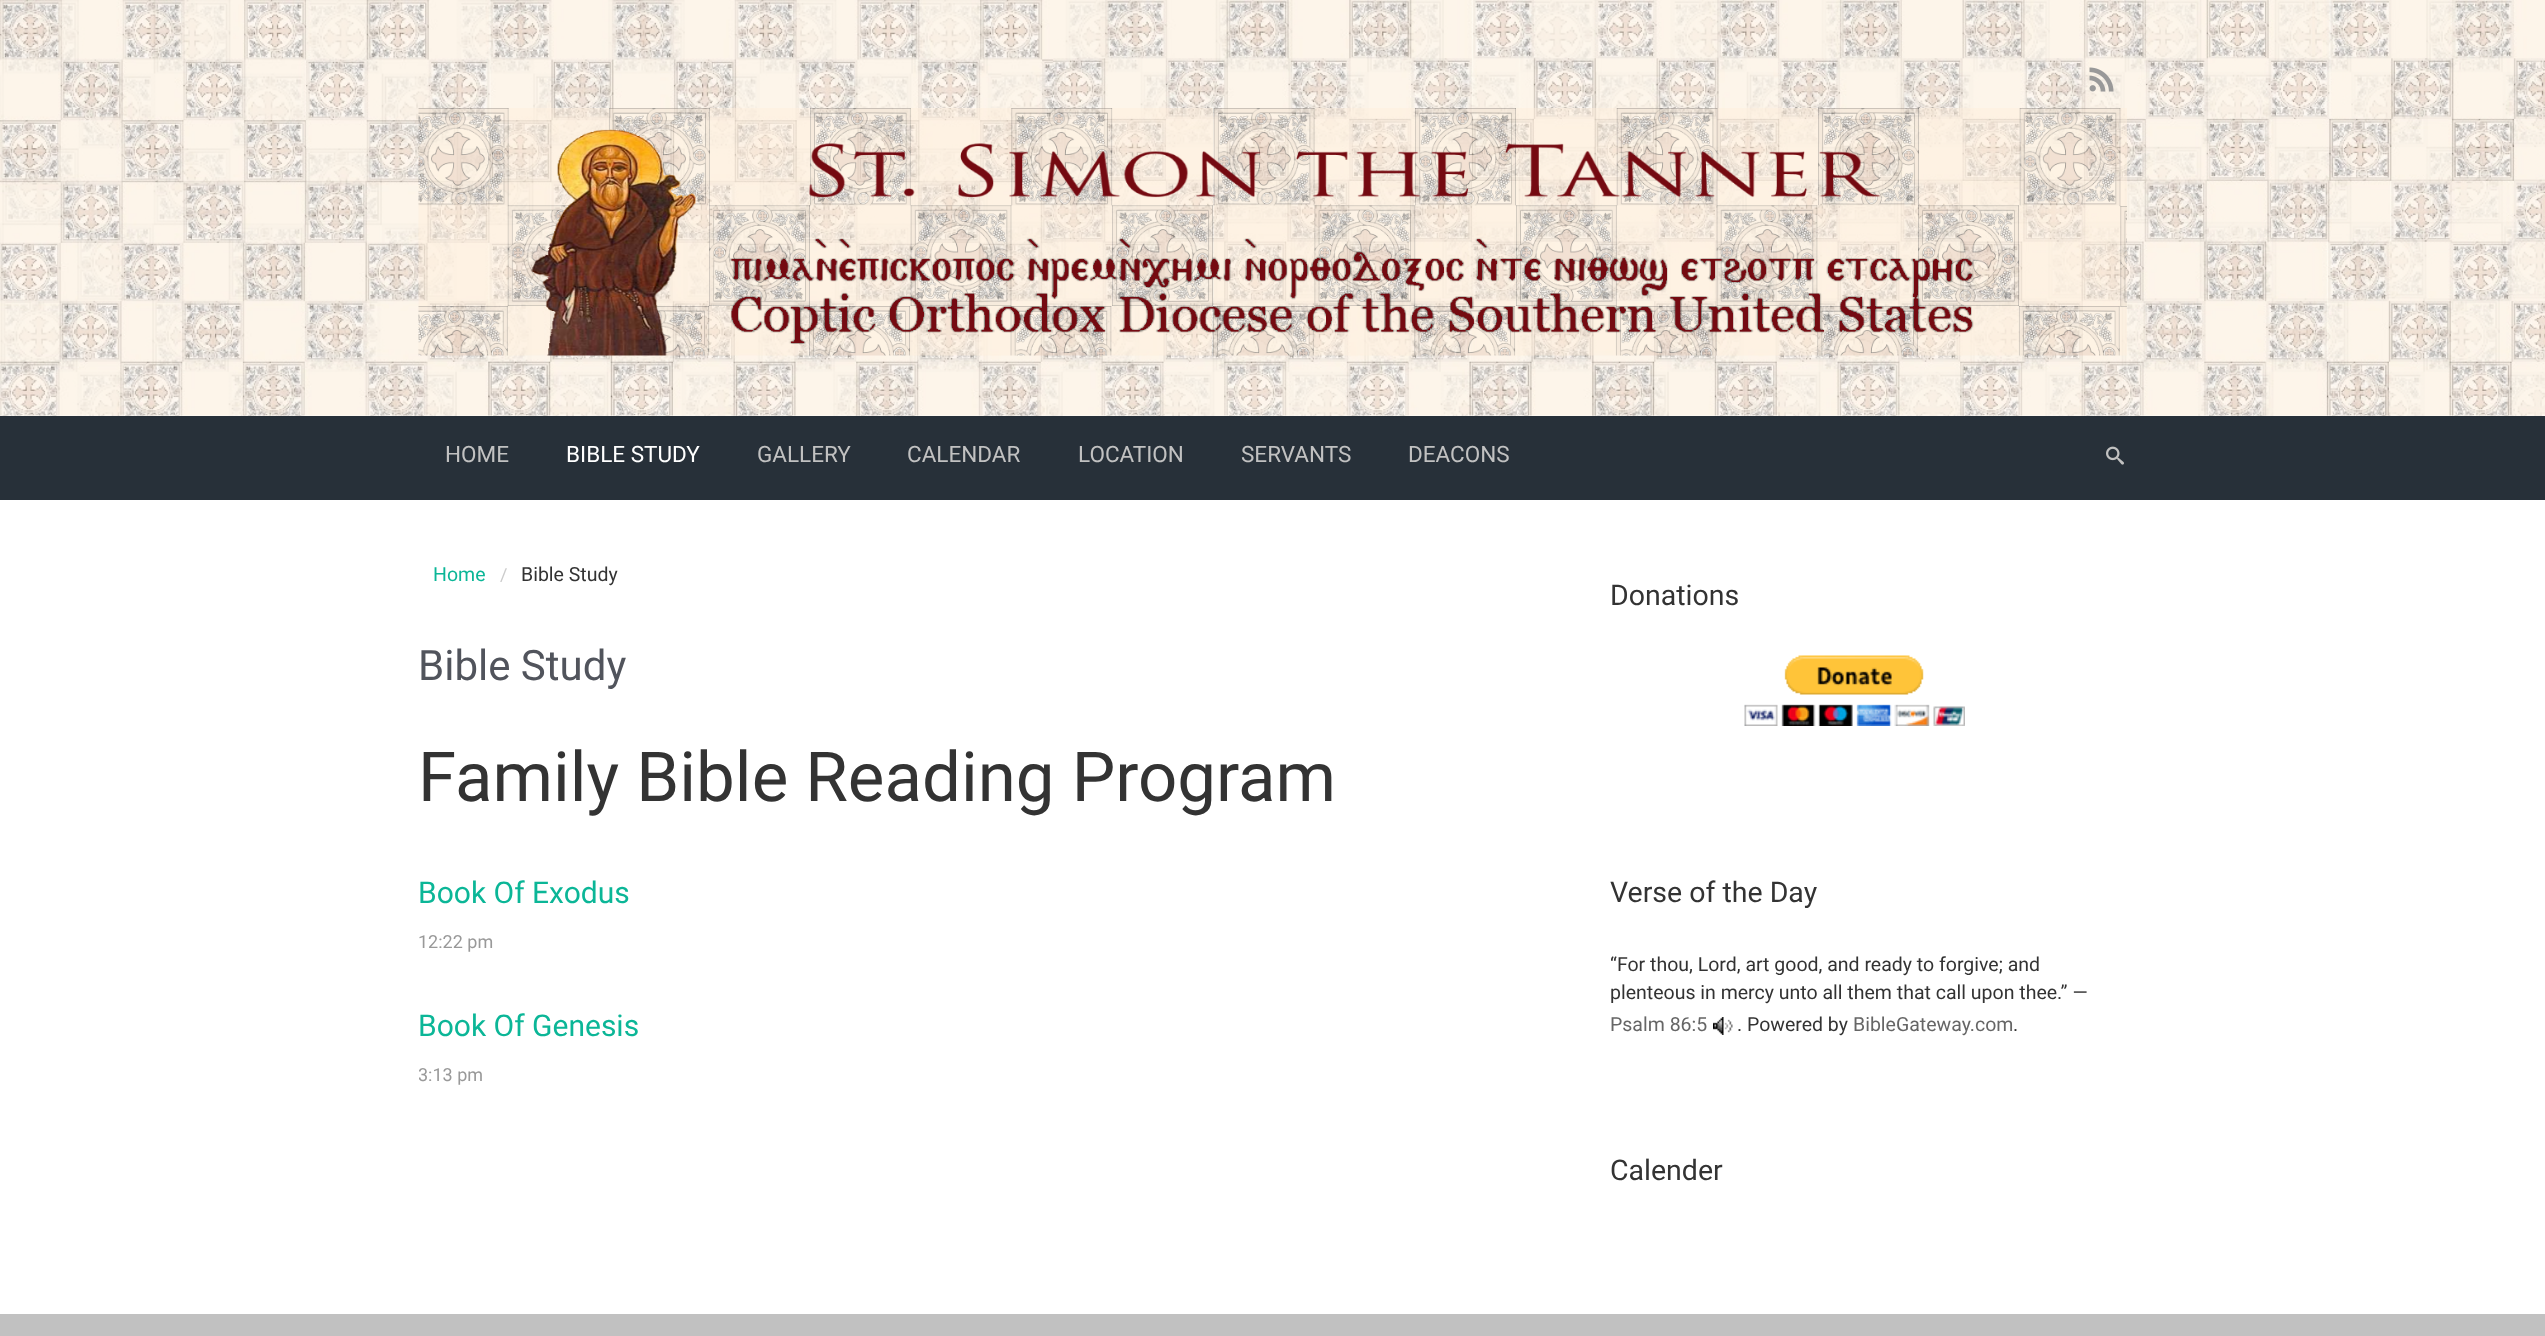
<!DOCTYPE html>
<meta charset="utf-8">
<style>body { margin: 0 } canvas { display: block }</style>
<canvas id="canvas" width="2545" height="1336"></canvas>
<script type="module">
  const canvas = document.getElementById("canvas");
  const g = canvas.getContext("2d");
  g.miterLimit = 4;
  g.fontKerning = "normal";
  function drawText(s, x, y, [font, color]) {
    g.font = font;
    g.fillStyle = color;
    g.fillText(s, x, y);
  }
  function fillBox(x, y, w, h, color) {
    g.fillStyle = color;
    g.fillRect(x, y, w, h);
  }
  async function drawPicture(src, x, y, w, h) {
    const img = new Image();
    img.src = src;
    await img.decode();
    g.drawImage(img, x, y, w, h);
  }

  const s1 = ["22.5px Roboto", "#C1C1C1"];
  const s2 = ["22.5px Roboto", "#FFFFFF"];
  const s3 = ["19.5px Roboto", "#0BB697"];
  const s4 = ["18px Roboto", "#CCCCCC"];
  const s5 = ["19.5px Roboto", "#333333"];
  const s6 = ["42px Roboto", "#51545C"];
  const s7 = ["69px Roboto", "#333333"];
  const s8 = ["30px Roboto", "#0BB697"];
  const s9 = ["18px Roboto", "#999999"];
  const s10 = ["28.5px Roboto", "#333333"];
  const s11 = ["19.5px Roboto", "#666666"];

  fillBox(0, 0, 2545, 1336, "#FFFFFF");
  await drawPicture("pic1.png", 0, 0, 2545, 416);
  await drawPicture("pic2.png", 0, 0, 2545, 416);
  await drawPicture("pic3.png", 2089, 67, 25, 25);
  await drawPicture("pic4.png", 418, 108, 1709, 248);
  fillBox(0, 416, 2545, 84, "#273039");
  drawText("HOME", 445, 462, s1);
  drawText("BIBLE STUDY", 566, 462, s2);
  drawText("GALLERY", 757, 462, s1);
  drawText("CALENDAR", 907, 462, s1);
  drawText("LOCATION", 1078, 462, s1);
  drawText("SERVANTS", 1241, 462, s1);
  drawText("DEACONS", 1408, 462, s1);
  await drawPicture("pic5.png", 2106, 446, 18, 19);
  drawText("Home", 433, 581, s3);
  drawText("/", 500, 581, s4);
  drawText("Bible Study", 521, 581, s5);
  drawText("Bible Study", 418, 680, s6);
  drawText("Family Bible Reading Program", 418, 801, s7);
  drawText("Book Of Exodus", 418, 903, s8);
  drawText("12:22 pm", 418, 948, s9);
  drawText("Book Of Genesis", 418, 1036, s8);
  g.save();
  g.beginPath();
  g.rect(419, 1065, 1125, 21);
  g.clip();
  drawText("3:13 pm", 418, 1081, s9);
  g.restore();
  drawText("Donations", 1610, 605, s10);
  await drawPicture("pic6.png", 1744, 655, 221, 71);
  drawText("Verse of the Day", 1610, 902, s10);
  drawText("“For thou, Lord, art good, and ready to forgive; and", 1610, 971, s5);
  drawText("plenteous in mercy unto all them that call upon thee.” —", 1610, 999, s5);
  drawText("Psalm 86:5", 1610, 1031, s11);
  await drawPicture("pic7.png", 1713, 1017, 20, 18);
  drawText(". Powered by", 1737, 1031, s5);
  drawText("BibleGateway.com", 1853, 1031, s11);
  drawText(".", 2013, 1031, s5);
  drawText("Calender", 1610, 1180, s10);
  fillBox(0, 1314, 2545, 22, "#C1C1C1");
</script>
